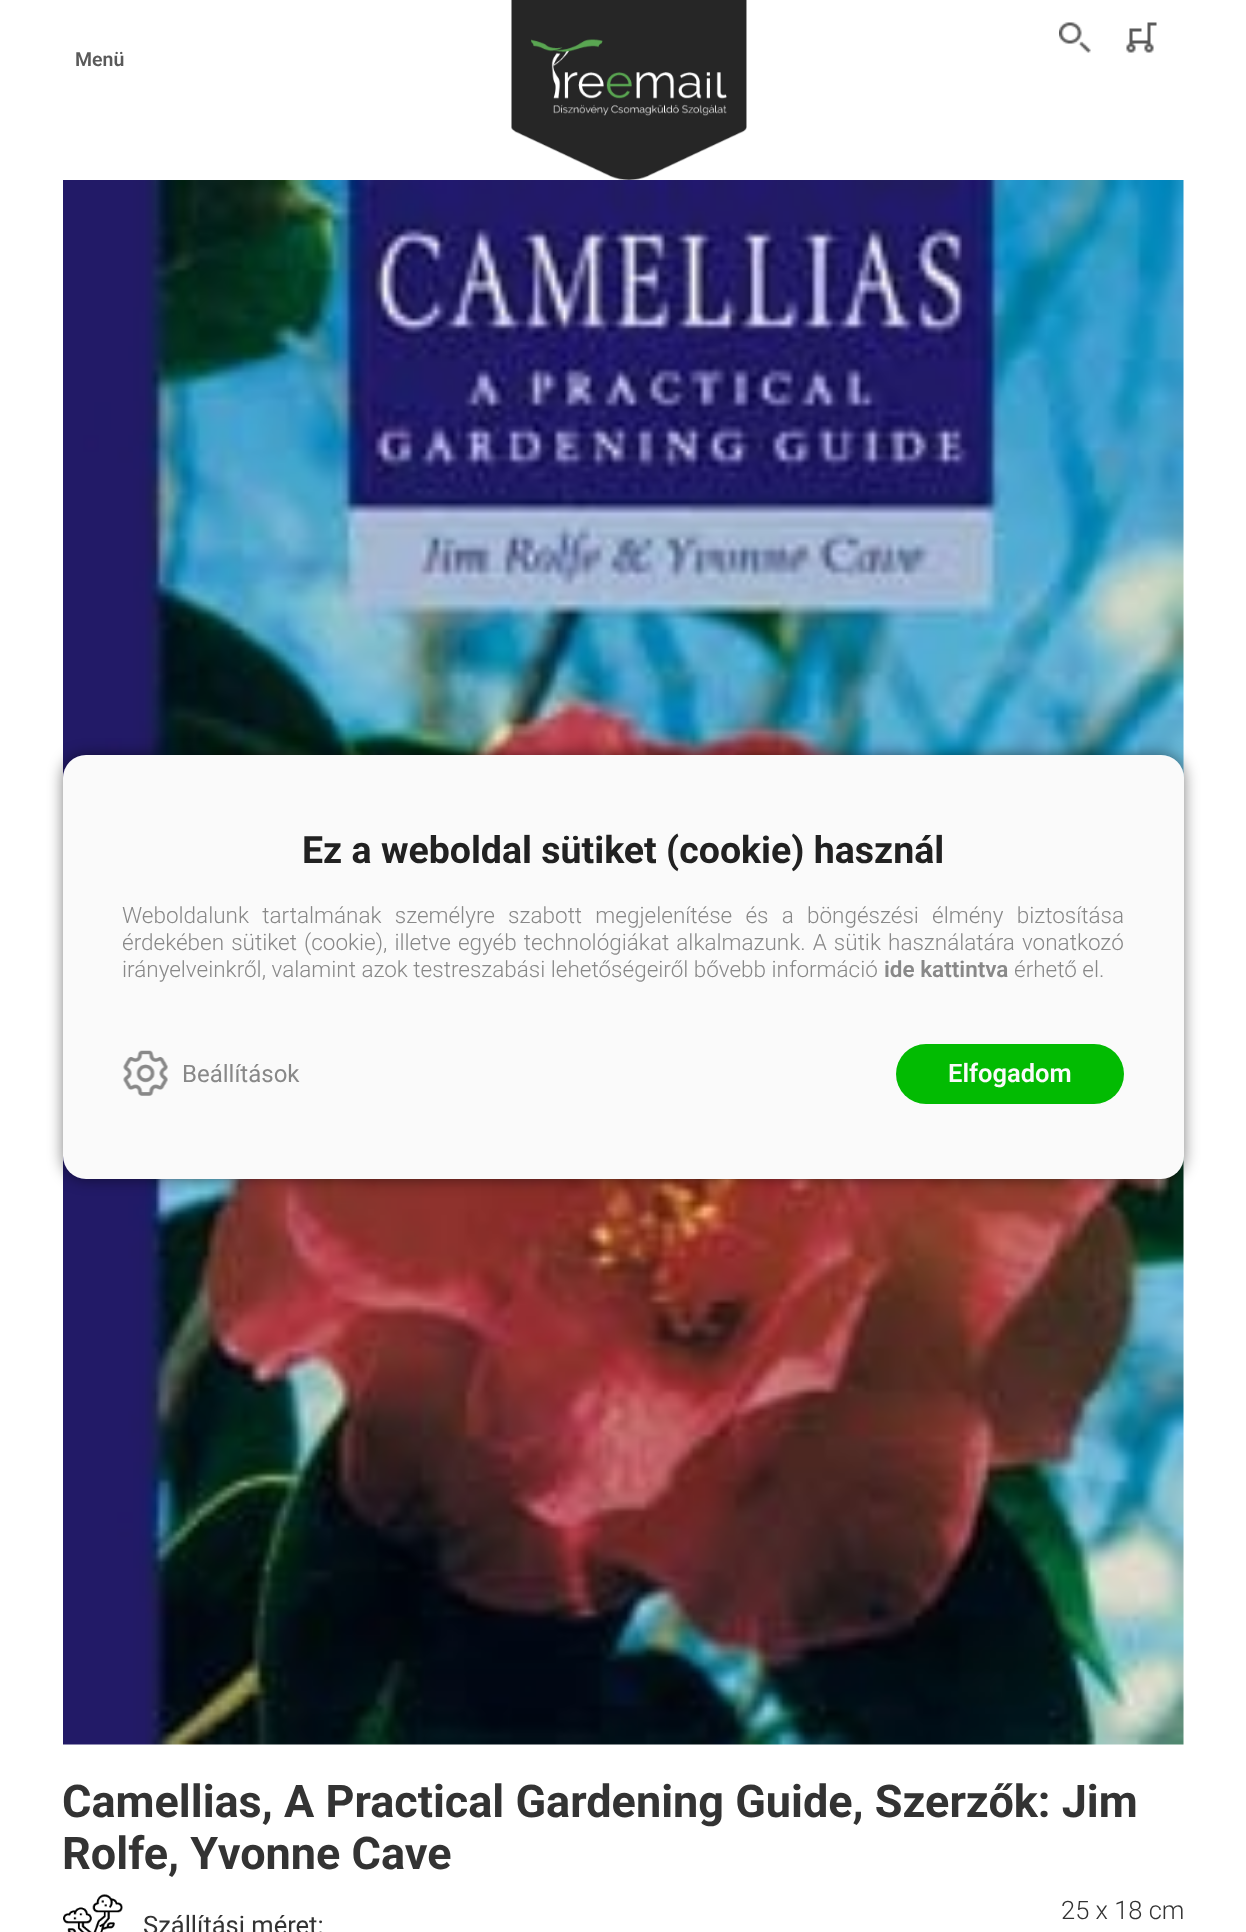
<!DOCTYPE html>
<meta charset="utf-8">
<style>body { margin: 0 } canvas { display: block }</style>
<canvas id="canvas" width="1246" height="1932"></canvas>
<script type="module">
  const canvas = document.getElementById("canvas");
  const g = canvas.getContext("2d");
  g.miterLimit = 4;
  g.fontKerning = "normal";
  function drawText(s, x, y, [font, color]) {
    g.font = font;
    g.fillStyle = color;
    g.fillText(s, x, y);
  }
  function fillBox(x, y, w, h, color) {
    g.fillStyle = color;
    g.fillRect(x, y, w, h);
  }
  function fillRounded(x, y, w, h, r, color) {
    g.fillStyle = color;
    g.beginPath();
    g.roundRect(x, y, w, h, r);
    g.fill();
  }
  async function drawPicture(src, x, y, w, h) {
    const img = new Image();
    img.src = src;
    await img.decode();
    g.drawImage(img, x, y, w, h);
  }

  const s1 = ["600 19.5px Roboto", "#5A5A5A"];
  const s2 = ["bold 45px Roboto", "#333333"];
  const s3 = ["300 25.5px Roboto", "#333333"];
  const s4 = ["25.5px Roboto", "#333333"];
  const s5 = ["bold 37.5px Roboto", "#212121"];
  const s6 = ["300 22.5px Roboto", "#888888"];
  const s7 = ["600 22.5px Roboto", "#888888"];
  const s8 = ["24px Roboto", "#888888"];
  const s9 = ["600 25.5px Roboto", "#FAFAFA"];

  fillBox(0, 0, 1246, 1932, "#FFFFFF");
  await drawPicture("pic1.png", 511, 0, 236, 180);
  await drawPicture("pic2.png", 1059, 22, 32, 31);
  await drawPicture("pic3.png", 1126, 22, 31, 31);
  drawText("Menü", 75, 66, s1);
  await drawPicture("pic4.png", 63, 180, 1121, 1565);
  drawText("Camellias, A Practical Gardening Guide, Szerzők: Jim", 62, 1817, s2);
  drawText("Rolfe, Yvonne Cave", 62, 1869, s2);
  await drawPicture("pic5.png", 63, 1894, 60, 38);
  drawText("25 x 18 cm", 1061, 1919, s3);
  drawText("Szállítási méret:", 143, 1934, s4);
  g.save();
  g.beginPath();
  g.moveTo(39, 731);
  g.lineTo(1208, 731);
  g.lineTo(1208, 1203);
  g.lineTo(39, 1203);
  g.closePath();
  g.moveTo(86, 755);
  g.lineTo(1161, 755);
  g.bezierCurveTo(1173.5, 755, 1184, 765.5, 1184, 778);
  g.lineTo(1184, 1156);
  g.bezierCurveTo(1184, 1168.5, 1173.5, 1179, 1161, 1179);
  g.lineTo(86, 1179);
  g.bezierCurveTo(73.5, 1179, 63, 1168.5, 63, 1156);
  g.lineTo(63, 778);
  g.bezierCurveTo(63, 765.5, 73.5, 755, 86, 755);
  g.closePath();
  g.clip("evenodd");
  g.fillStyle = "rgba(0, 0, 0, 0.5)";
  g.filter = "blur(7.5px)";
  g.beginPath();
  g.roundRect(63, 755, 1121, 424, 23);
  g.fill();
  g.filter = "none";
  g.restore();
  fillRounded(63, 755, 1121, 424, 23, "#FAFAFA");
  drawText("Ez a weboldal sütiket (cookie) használ", 302, 863, s5);
  g.wordSpacing = "7.75px";
  drawText("Weboldalunk tartalmának személyre szabott megjelenítése és a böngészési élmény biztosítása", 122, 923, s6);
  g.wordSpacing = "1.6px";
  drawText("érdekében sütiket (cookie), illetve egyéb technológiákat alkalmazunk. A sütik használatára vonatkozó", 122, 950, s6);
  g.wordSpacing = "0px";
  drawText("irányelveinkről, valamint azok testreszabási lehetőségeiről bővebb információ", 122, 977, s6);
  drawText("ide kattintva", 884, 977, s7);
  drawText("érhető el.", 1014, 977, s6);
  await drawPicture("pic6.png", 123, 1050, 45, 46);
  drawText("Beállítások", 182, 1082, s8);
  fillRounded(896, 1044, 228, 60, 30, "#02BB02");
  drawText("Elfogadom", 948, 1082, s9);
</script>
